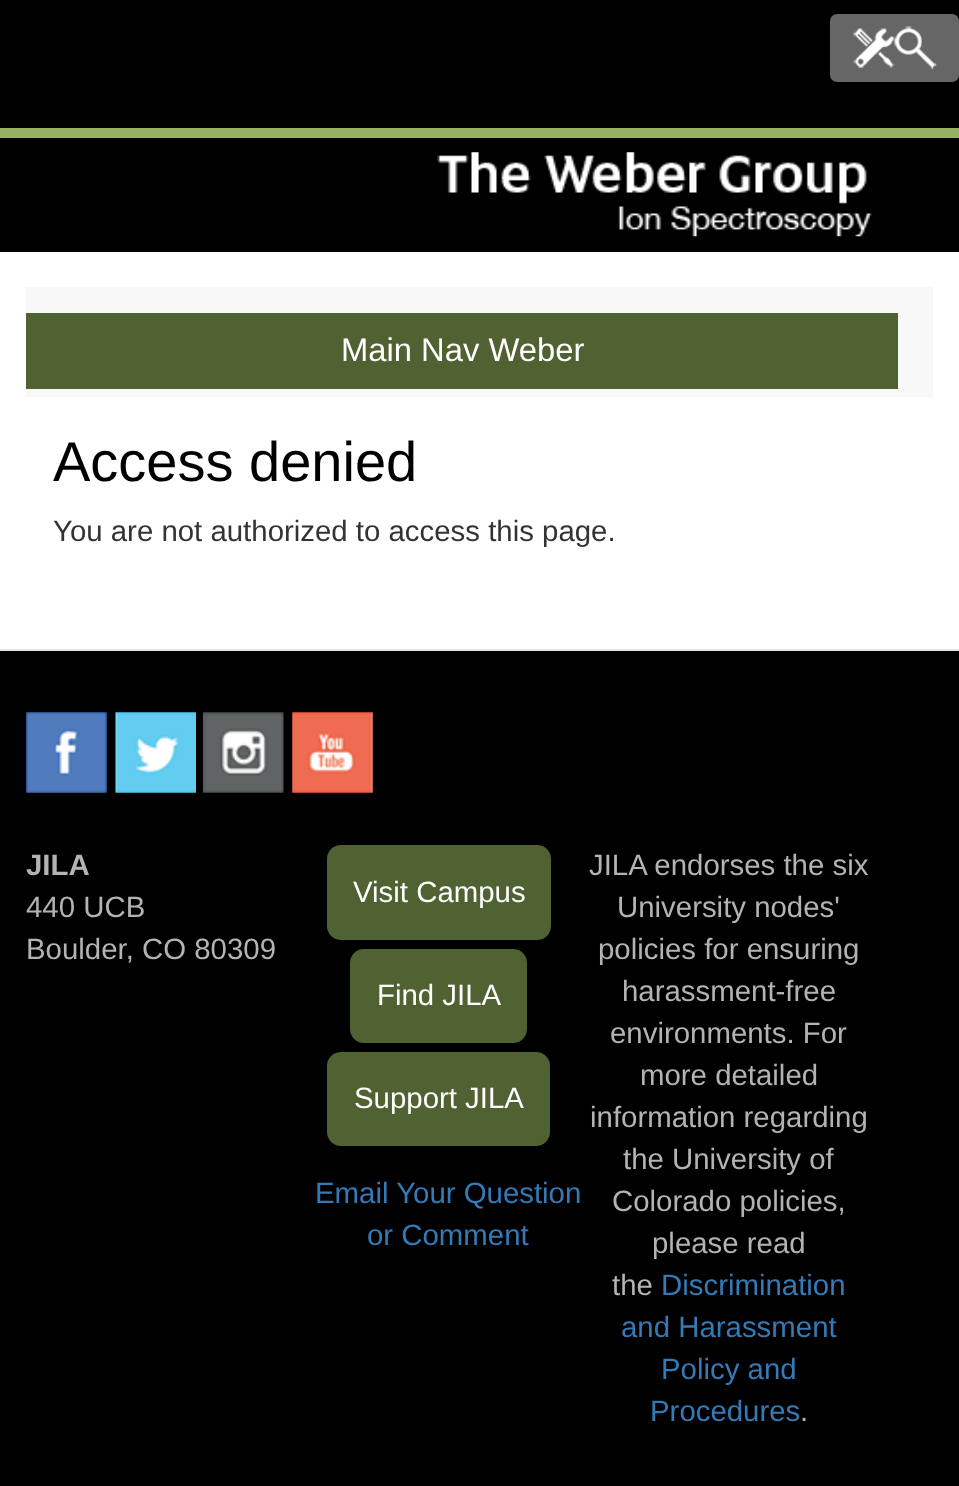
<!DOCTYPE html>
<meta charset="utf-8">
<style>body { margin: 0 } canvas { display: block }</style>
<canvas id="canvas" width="959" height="1486"></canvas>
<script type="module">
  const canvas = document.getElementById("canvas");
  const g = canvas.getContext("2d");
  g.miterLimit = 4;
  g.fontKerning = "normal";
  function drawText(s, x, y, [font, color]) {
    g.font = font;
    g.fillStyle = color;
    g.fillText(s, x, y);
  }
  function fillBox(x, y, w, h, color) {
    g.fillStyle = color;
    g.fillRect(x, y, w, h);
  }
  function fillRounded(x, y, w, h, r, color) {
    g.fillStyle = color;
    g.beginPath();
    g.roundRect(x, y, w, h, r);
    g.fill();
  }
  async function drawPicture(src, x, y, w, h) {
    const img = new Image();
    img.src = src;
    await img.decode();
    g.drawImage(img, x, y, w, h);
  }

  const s1 = ["32.75px Liberation Sans", "#FFFFFF"];
  const s2 = ["56px Liberation Sans", "#000000"];
  const s3 = ["29.4px Liberation Sans", "#333333"];
  const s4 = ["bold 29.4px Liberation Sans", "#B4B3B3"];
  const s5 = ["29.4px Liberation Sans", "#B4B3B3"];
  const s6 = ["29.4px Liberation Sans", "#FFFFFF"];
  const s7 = ["29.4px Liberation Sans", "#337AB7"];

  fillBox(0, 0, 959, 1486, "#FFFFFF");
  fillBox(0, 0, 959, 252, "#000000");
  g.fillStyle = "#666666";
  g.beginPath();
  g.roundRect(831, 15, 127, 66, 6);
  g.fill();
  g.strokeStyle = "#666666";
  g.lineWidth = 2;
  g.stroke();
  await drawPicture("pic1.png", 853, 26, 84, 43);
  fillBox(0, 128, 959, 10, "#94B261");
  await drawPicture("pic2.png", 437, 152, 435, 85);
  fillBox(26, 287, 907, 110, "#F8F8F8");
  fillBox(26, 313, 872, 76, "#506132");
  drawText("Main Nav Weber", 341, 361, s1);
  drawText("Access denied", 53, 481, s2);
  drawText("You are not authorized to access this page.", 53, 541, s3);
  fillBox(0, 651, 959, 835, "#000000");
  fillBox(0, 649, 959, 2, "#E5E5E5");
  await drawPicture("pic3.png", 26, 712, 81, 81);
  await drawPicture("pic4.png", 115, 712, 81, 81);
  await drawPicture("pic5.png", 203, 712, 81, 81);
  await drawPicture("pic6.png", 292, 712, 81, 81);
  drawText("JILA", 26, 875, s4);
  drawText("440 UCB", 26, 917, s5);
  drawText("Boulder, CO 80309", 26, 959, s5);
  fillRounded(327, 845, 224, 95, 14, "#506132");
  drawText("Visit Campus", 353, 902, s6);
  fillRounded(350, 949, 177, 94, 14, "#506132");
  drawText("Find JILA", 377, 1005, s6);
  fillRounded(327, 1052, 223, 94, 14, "#506132");
  drawText("Support JILA", 354, 1108, s6);
  drawText("Email Your Question", 315, 1203, s7);
  drawText("or Comment", 367, 1245, s7);
  drawText("JILA endorses the six", 589, 875, s5);
  drawText("University nodes'", 617, 917, s5);
  drawText("policies for ensuring", 598, 959, s5);
  drawText("harassment-free", 622, 1001, s5);
  drawText("environments. For", 610, 1043, s5);
  drawText("more detailed", 640, 1085, s5);
  drawText("information regarding", 590, 1127, s5);
  drawText("the University of", 623, 1169, s5);
  drawText("Colorado policies,", 612, 1211, s5);
  drawText("please read", 652, 1253, s5);
  drawText("the", 612, 1295, s5);
  drawText("Discrimination", 661, 1295, s7);
  drawText("and Harassment", 621, 1337, s7);
  drawText("Policy and", 661, 1379, s7);
  drawText("Procedures", 650, 1421, s7);
  drawText(".", 800, 1421, s5);
</script>
